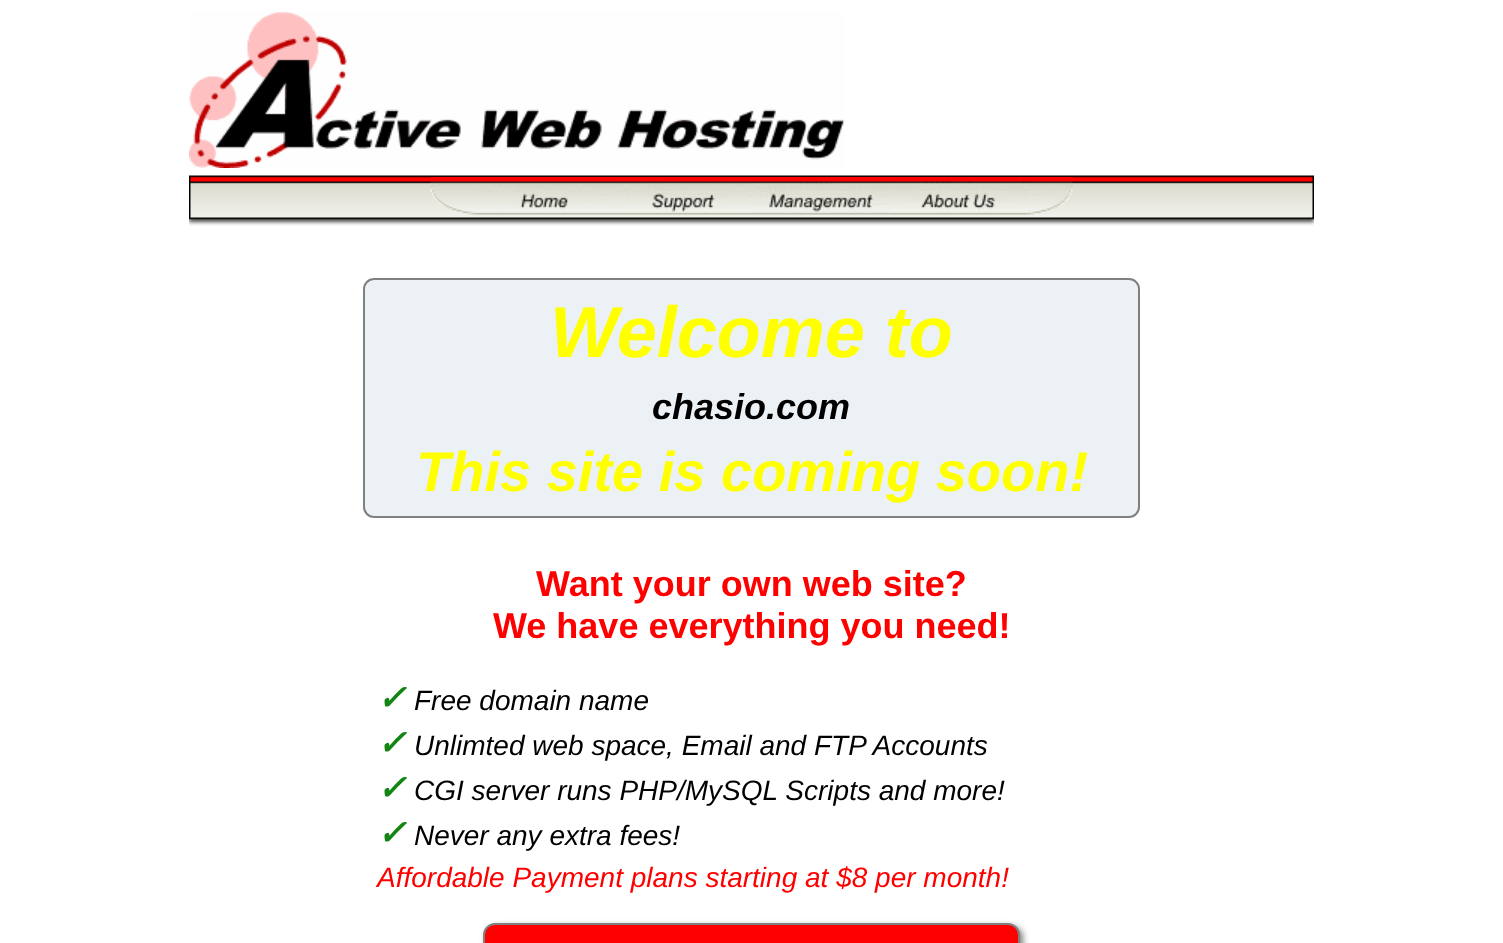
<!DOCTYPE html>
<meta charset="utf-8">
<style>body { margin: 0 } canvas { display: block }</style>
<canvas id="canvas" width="1503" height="943"></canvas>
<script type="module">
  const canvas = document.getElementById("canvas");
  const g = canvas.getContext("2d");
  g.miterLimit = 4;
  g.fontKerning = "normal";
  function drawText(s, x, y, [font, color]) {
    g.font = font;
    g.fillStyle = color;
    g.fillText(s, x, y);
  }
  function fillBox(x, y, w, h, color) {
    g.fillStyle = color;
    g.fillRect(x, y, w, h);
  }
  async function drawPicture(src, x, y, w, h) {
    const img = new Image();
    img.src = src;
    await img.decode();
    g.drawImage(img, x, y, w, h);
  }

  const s1 = ["italic bold 72px Liberation Sans", "#FFFF00"];
  const s2 = ["italic bold 36px Liberation Sans", "#000000"];
  const s3 = ["italic bold 56px Liberation Sans", "#FFFF00"];
  const s4 = ["bold 36px Liberation Sans", "#FF0000"];
  const s5 = ["italic bold 35px DejaVu Sans", "#138513"];
  const s6 = ["italic 28px Liberation Sans", "#000000"];
  const s7 = ["italic 28px Liberation Sans", "#FF0000"];

  fillBox(0, 0, 1503, 943, "#FFFFFF");
  await drawPicture("pic1.png", 189, 12, 656, 156);
  await drawPicture("pic2.png", 189, 175, 1125, 51);
  await drawPicture("pic3.png", 430, 177, 46, 38);
  await drawPicture("pic4.png", 475, 177, 139, 38);
  await drawPicture("pic5.png", 613, 177, 139, 38);
  await drawPicture("pic6.png", 751, 177, 139, 38);
  await drawPicture("pic7.png", 889, 177, 139, 38);
  await drawPicture("pic8.png", 1027, 177, 46, 38);
  g.fillStyle = "#ECF1F6";
  g.beginPath();
  g.roundRect(364, 279, 775, 238, 10);
  g.fill();
  g.strokeStyle = "#808080";
  g.lineWidth = 2;
  g.stroke();
  drawText("Welcome to", 550, 357, s1);
  drawText("chasio.com", 652, 419, s2);
  drawText("This site is coming soon!", 416, 491, s3);
  drawText("Want your own web site?", 536, 596, s4);
  drawText("We have everything you need!", 493, 638, s4);
  drawText("✓", 377, 710, s5);
  drawText("Free domain name", 414, 710, s6);
  drawText("✓", 377, 755, s5);
  drawText("Unlimted web space, Email and FTP Accounts", 414, 755, s6);
  drawText("✓", 377, 800, s5);
  drawText("CGI server runs PHP/MySQL Scripts and more!", 414, 800, s6);
  drawText("✓", 377, 845, s5);
  drawText("Never any extra fees!", 414, 845, s6);
  drawText("Affordable Payment plans starting at $8 per month!", 377, 887, s7);
  g.fillStyle = "rgba(0, 0, 0, 0.5)";
  g.filter = "blur(3px)";
  g.beginPath();
  g.roundRect(486, 926, 537, 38, 12);
  g.fill();
  g.filter = "none";
  g.fillStyle = "#FF0000";
  g.beginPath();
  g.roundRect(484, 924, 535, 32, 11);
  g.fill();
  g.stroke();
</script>
